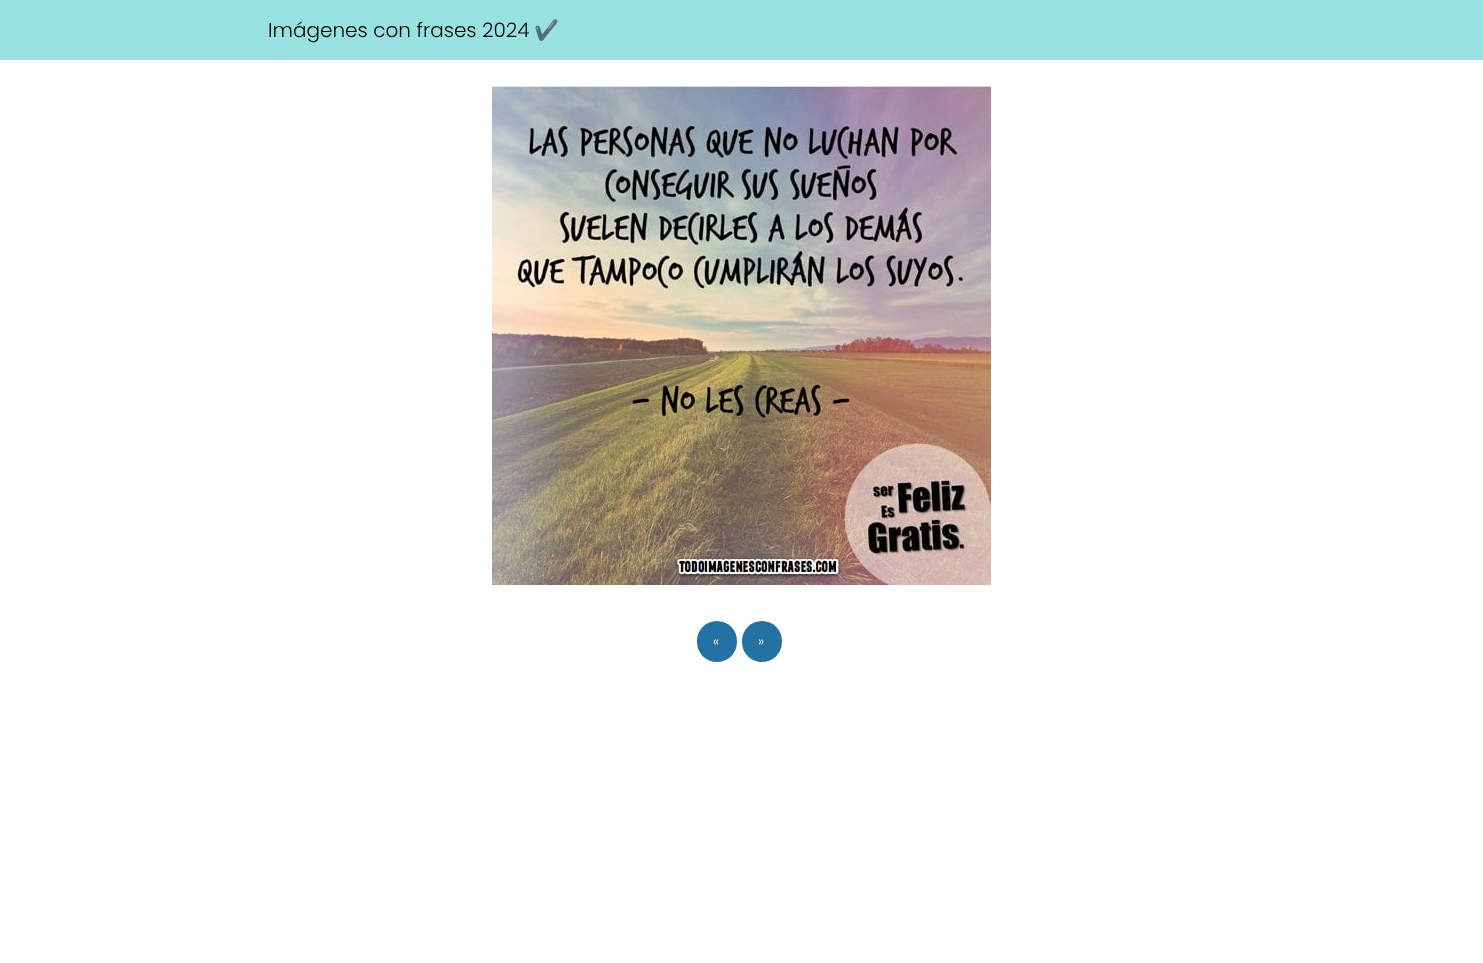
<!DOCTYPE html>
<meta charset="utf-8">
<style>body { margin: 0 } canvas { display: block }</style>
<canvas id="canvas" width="1483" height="963"></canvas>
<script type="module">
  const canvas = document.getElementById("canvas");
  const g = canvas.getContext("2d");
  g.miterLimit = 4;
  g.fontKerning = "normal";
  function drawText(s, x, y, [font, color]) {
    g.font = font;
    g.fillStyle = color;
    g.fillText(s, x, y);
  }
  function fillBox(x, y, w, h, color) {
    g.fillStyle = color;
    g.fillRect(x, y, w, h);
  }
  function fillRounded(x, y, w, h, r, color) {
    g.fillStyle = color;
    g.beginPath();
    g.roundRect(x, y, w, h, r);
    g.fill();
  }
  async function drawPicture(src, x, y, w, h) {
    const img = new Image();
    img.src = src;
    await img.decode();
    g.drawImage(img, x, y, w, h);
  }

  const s1 = ["300 20px Poppins", "#000000"];
  const s2 = ["20px Noto Color Emoji", "#000000"];
  const s3 = ["300 14px Poppins", "#FFFFFF"];

  fillBox(0, 0, 1483, 963, "#FFFFFF");
  fillBox(0, 0, 1483, 60, "#98E2E2");
  drawText("Imágenes con frases 2024", 268, 37, s1);
  drawText("✔️", 534, 37, s2);
  await drawPicture("pic1.png", 492, 86, 499, 499);
  fillRounded(697, 621, 40, 41, 20, "#2471A3");
  drawText("«", 713, 646, s3);
  fillRounded(742, 621, 40, 41, 20, "#2471A3");
  drawText("»", 758, 646, s3);
</script>
